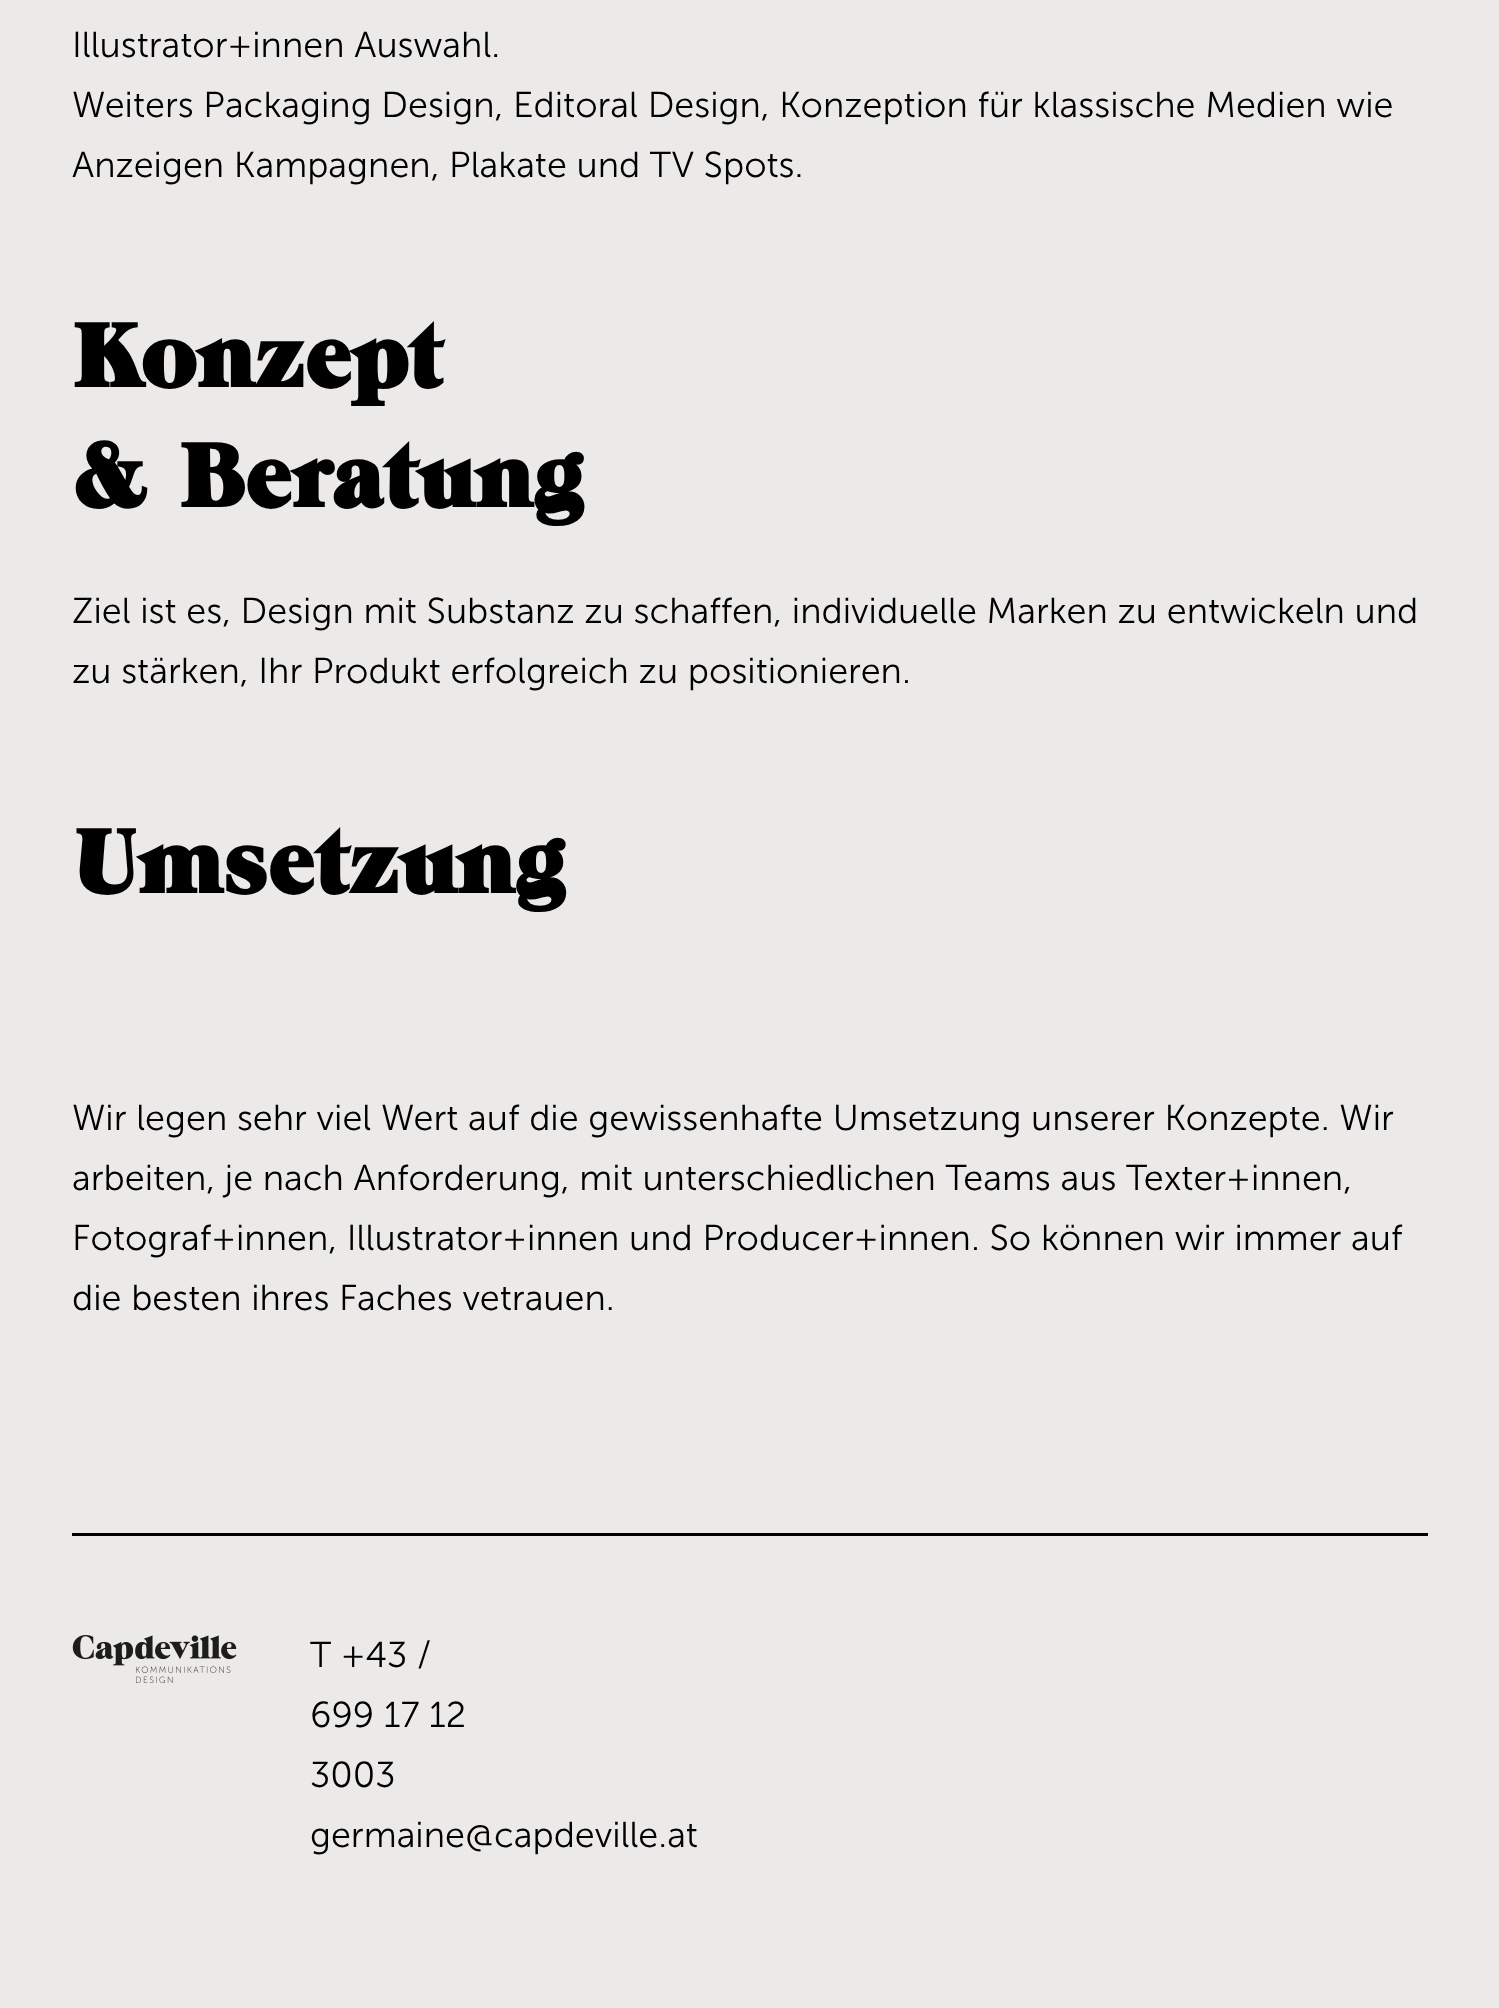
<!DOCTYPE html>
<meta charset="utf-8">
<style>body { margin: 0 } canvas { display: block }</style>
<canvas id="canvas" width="1499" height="2008"></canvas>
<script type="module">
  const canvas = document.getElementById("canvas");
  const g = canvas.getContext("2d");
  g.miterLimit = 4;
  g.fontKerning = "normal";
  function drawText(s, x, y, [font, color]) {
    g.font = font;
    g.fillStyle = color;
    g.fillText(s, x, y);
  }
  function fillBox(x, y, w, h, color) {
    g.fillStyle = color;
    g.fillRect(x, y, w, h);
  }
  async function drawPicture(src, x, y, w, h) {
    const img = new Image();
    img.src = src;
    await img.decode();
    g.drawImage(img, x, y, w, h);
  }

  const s1 = ["300 36px 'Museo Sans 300'", "#000000"];
  const s2 = ["bold 90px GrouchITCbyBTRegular", "#000000"];

  fillBox(0, 0, 1499, 2008, "#EBEAE9");
  drawText("Illustrator+innen Auswahl.", 72, 57, s1);
  drawText("Weiters Packaging Design, Editoral Design, Konzeption für klassische Medien wie", 72, 117, s1);
  drawText("Anzeigen Kampagnen, Plakate und TV Spots.", 72, 177, s1);
  drawText("Konzept", 72, 387, s2);
  drawText("& Beratung", 72, 507, s2);
  drawText("Ziel ist es, Design mit Substanz zu schaffen, individuelle Marken zu entwickeln und", 72, 623, s1);
  drawText("zu stärken, Ihr Produkt erfolgreich zu positionieren.", 72, 683, s1);
  drawText("Umsetzung", 72, 893, s2);
  drawText("Wir legen sehr viel Wert auf die gewissenhafte Umsetzung unserer Konzepte. Wir", 72, 1130, s1);
  drawText("arbeiten, je nach Anforderung, mit unterschiedlichen Teams aus Texter+innen,", 72, 1190, s1);
  drawText("Fotograf+innen, Illustrator+innen und Producer+innen. So können wir immer auf", 72, 1250, s1);
  drawText("die besten ihres Faches vetrauen.", 72, 1310, s1);
  fillBox(72, 1533, 1356, 3, "#000000");
  await drawPicture("pic1.png", 72, 1635, 165, 48);
  drawText("T +43 /", 310, 1667, s1);
  drawText("699 17 12", 310, 1727, s1);
  drawText("3003", 310, 1787, s1);
  drawText("germaine@capdeville.at", 310, 1847, s1);
</script>
